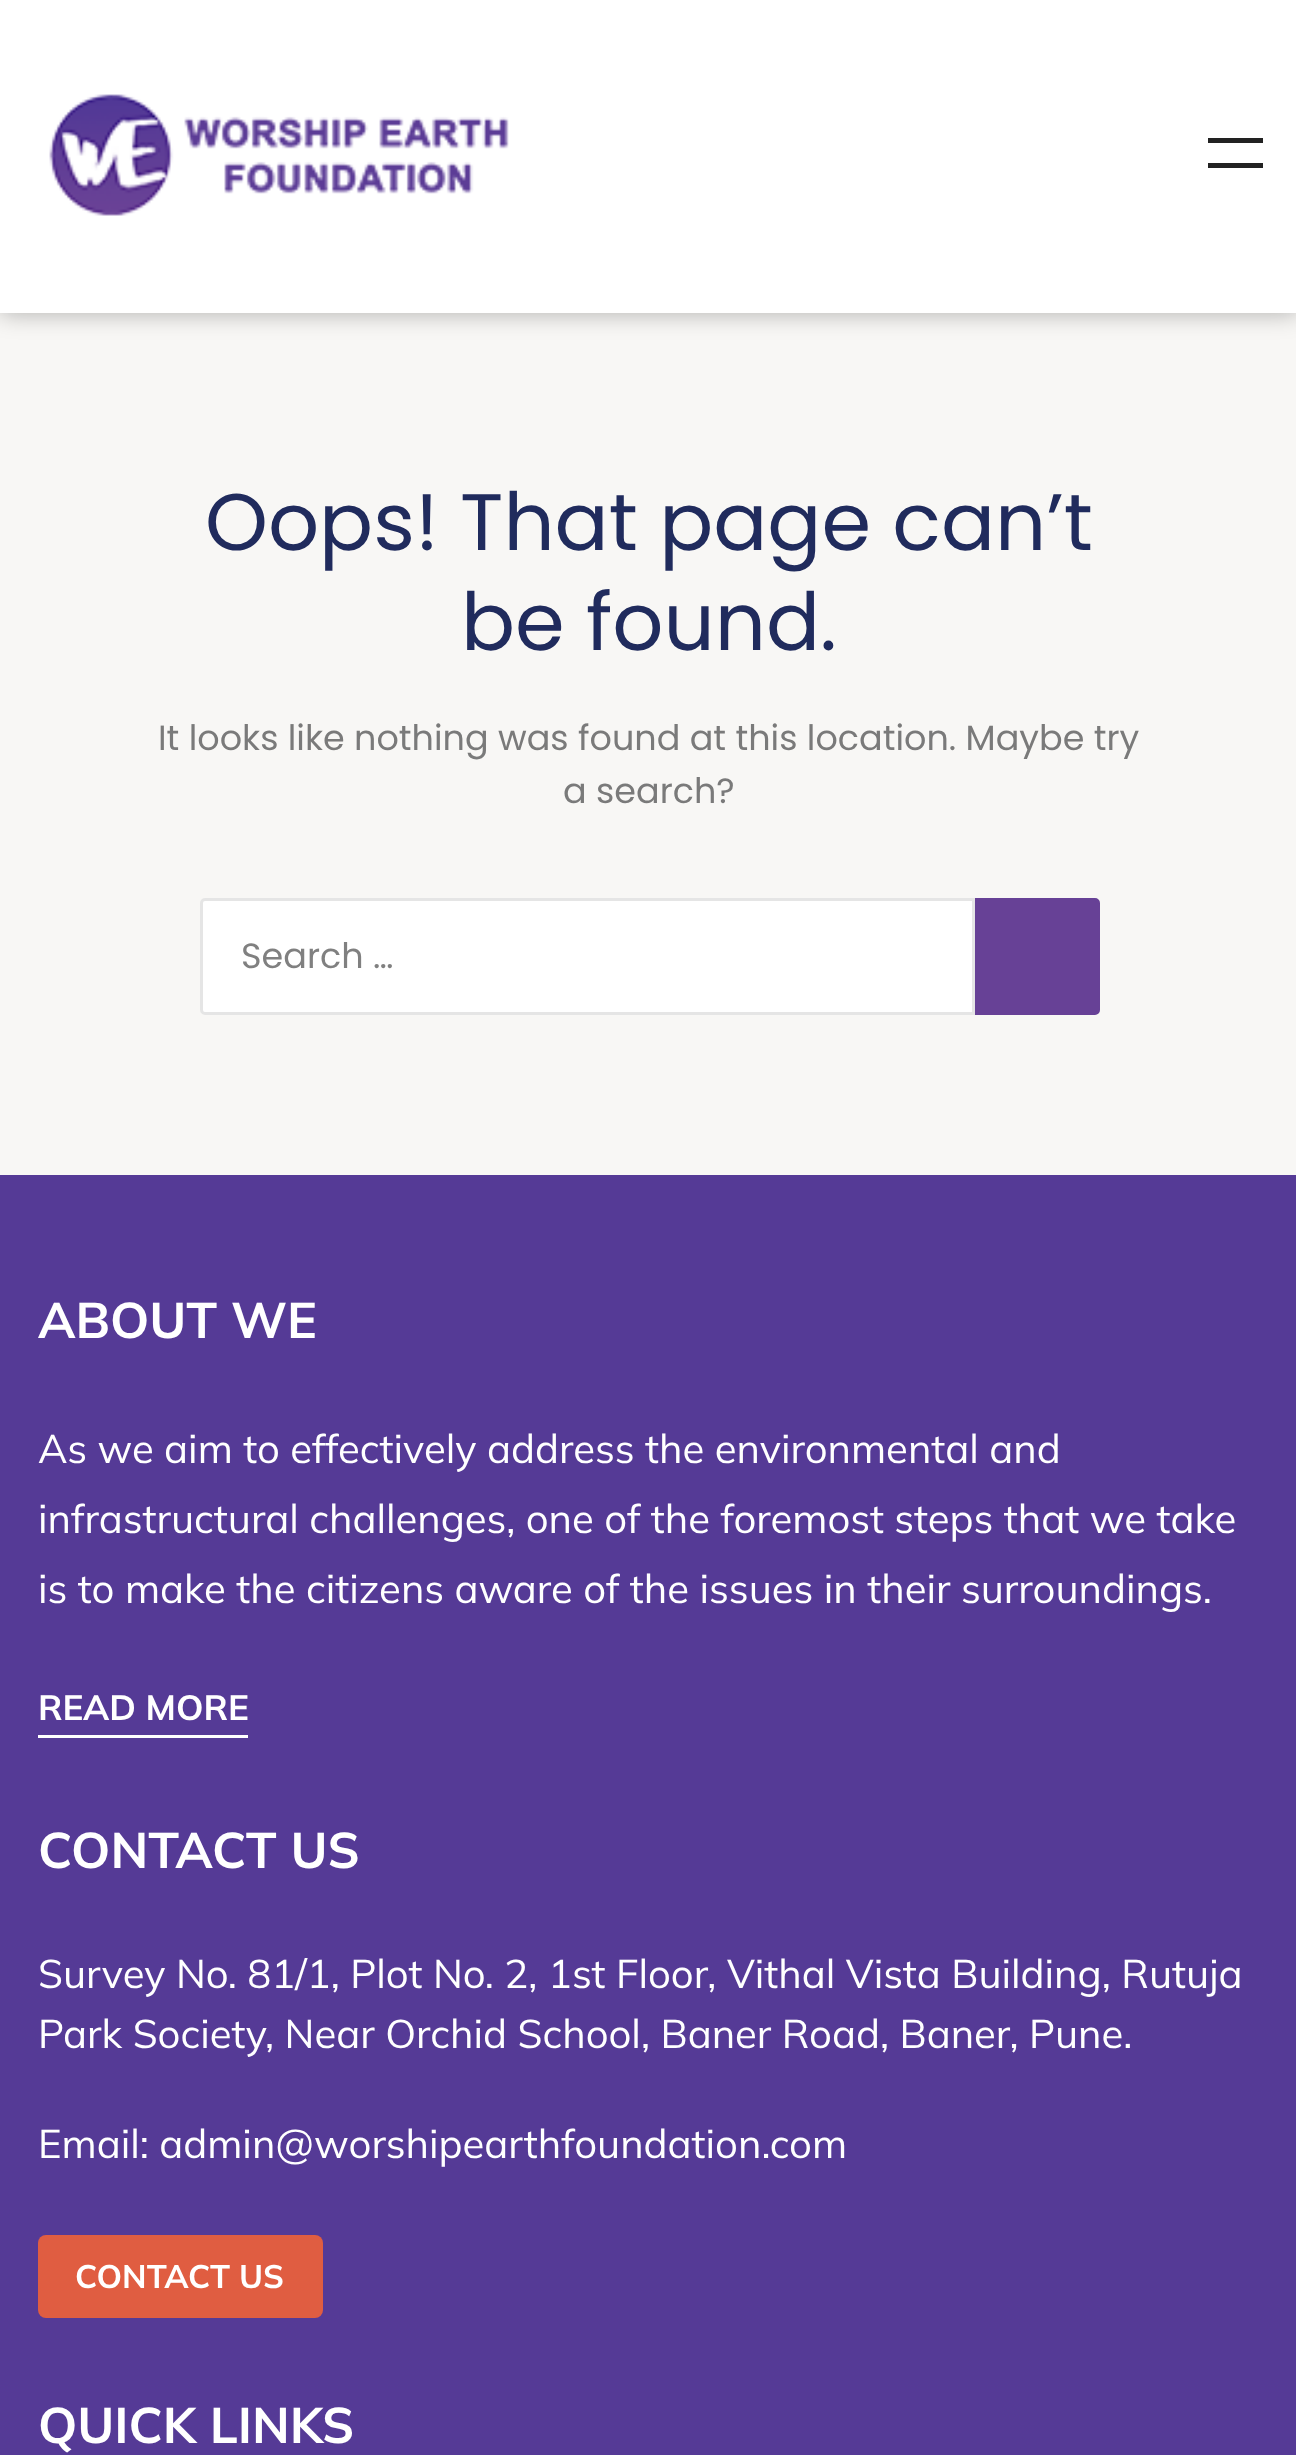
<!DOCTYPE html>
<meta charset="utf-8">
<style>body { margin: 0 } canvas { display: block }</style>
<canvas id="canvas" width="1296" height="2455"></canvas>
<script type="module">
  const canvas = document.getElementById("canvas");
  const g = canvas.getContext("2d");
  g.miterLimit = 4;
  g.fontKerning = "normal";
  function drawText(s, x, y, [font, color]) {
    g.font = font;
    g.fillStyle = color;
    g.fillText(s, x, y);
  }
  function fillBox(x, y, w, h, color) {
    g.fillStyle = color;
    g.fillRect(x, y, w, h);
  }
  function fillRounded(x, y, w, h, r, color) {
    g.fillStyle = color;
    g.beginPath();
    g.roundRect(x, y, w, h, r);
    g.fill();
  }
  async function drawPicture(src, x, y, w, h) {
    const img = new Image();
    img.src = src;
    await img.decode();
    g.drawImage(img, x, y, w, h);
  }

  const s1 = ["80px Poppins", "#202B5D"];
  const s2 = ["35px Poppins", "#7A7A7A"];
  const s3 = ["35px Poppins", "#808080"];
  const s4 = ["bold 50px Mulish", "#FFFFFF"];
  const s5 = ["40px Mulish", "#FFFFFF"];
  const s6 = ["bold 35px Mulish", "#FFFFFF"];
  const s7 = ["bold 32.5px Mulish", "#FFFFFF"];

  fillBox(0, 0, 1296, 2455, "#F8F7F5");
  g.fillStyle = "rgba(0, 0, 0, 0.3)";
  g.filter = "blur(12.5px)";
  g.beginPath();
  g.rect(0, 0, 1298, 313);
  g.fill();
  g.filter = "none";
  fillBox(0, 0, 1296, 313, "#FFFFFF");
  await drawPicture("pic1.png", 49, 94, 460, 122);
  fillBox(1208, 138, 55, 5, "#222222");
  fillBox(1208, 163, 55, 5, "#222222");
  drawText("Oops! That page can’t", 205, 550, s1);
  drawText("be found.", 461, 650, s1);
  drawText("It looks like nothing was found at this location. Maybe try", 158, 750, s2);
  drawText("a search?", 563, 803, s2);
  g.fillStyle = "#FFFFFF";
  g.beginPath();
  g.roundRect(200, 898, 775, 117, [5, 0, 0, 5]);
  g.fill();
  g.beginPath();
  g.roundRect(201.5, 899.5, 772, 114, [3.5, 0, 0, 3.5]);
  g.strokeStyle = "rgba(0, 0, 0, 0.1)";
  g.lineWidth = 3;
  g.stroke();
  drawText("Search …", 241, 968, s3);
  g.fillStyle = "#674196";
  g.beginPath();
  g.roundRect(976.5, 899.5, 122, 114, [0, 3.5, 3.5, 0]);
  g.fill();
  g.strokeStyle = "#674196";
  g.stroke();
  fillBox(0, 1175, 1296, 1280, "#553A96");
  drawText("ABOUT WE", 38, 1338, s4);
  drawText("As we aim to effectively address the environmental and", 38, 1463, s5);
  drawText("infrastructural challenges, one of the foremost steps that we take", 38, 1533, s5);
  drawText("is to make the citizens aware of the issues in their surroundings.", 38, 1603, s5);
  fillBox(38, 1735, 210, 3, "#FFFFFF");
  drawText("READ MORE", 38, 1720, s6);
  drawText("CONTACT US", 38, 1868, s4);
  drawText("Survey No. 81/1, Plot No. 2, 1st Floor, Vithal Vista Building, Rutuja", 38, 1988, s5);
  drawText("Park Society, Near Orchid School, Baner Road, Baner, Pune.", 38, 2048, s5);
  drawText("Email: admin@worshipearthfoundation.com", 38, 2158, s5);
  fillRounded(38, 2235, 285, 83, 8, "#E05D41");
  drawText("CONTACT US", 75, 2288, s7);
  drawText("QUICK LINKS", 38, 2443, s4);
</script>
